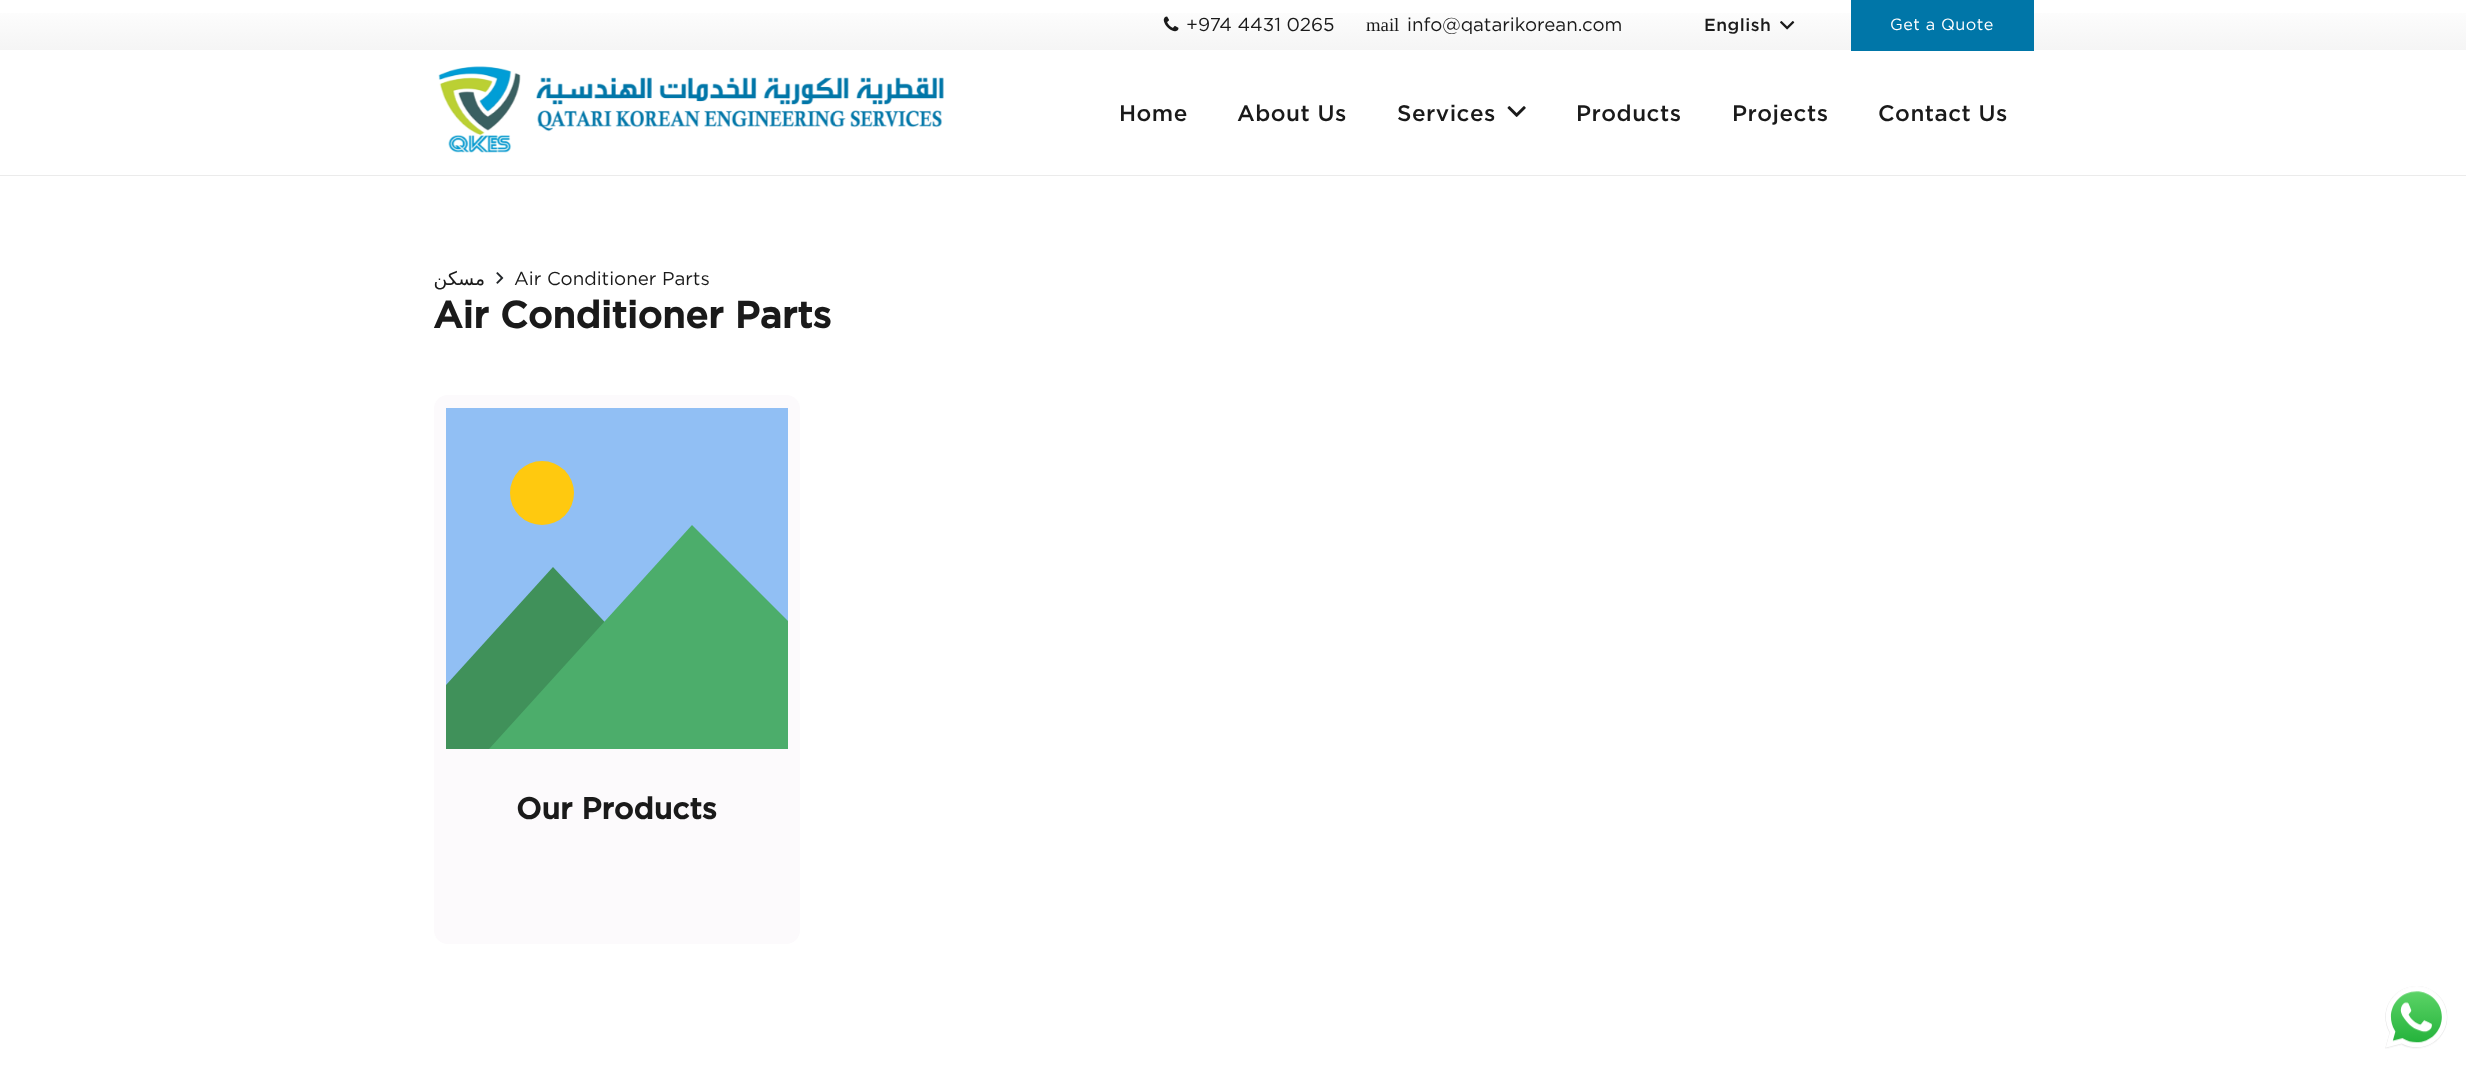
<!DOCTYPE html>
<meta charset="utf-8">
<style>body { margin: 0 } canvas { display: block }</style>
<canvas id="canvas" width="2466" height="1067"></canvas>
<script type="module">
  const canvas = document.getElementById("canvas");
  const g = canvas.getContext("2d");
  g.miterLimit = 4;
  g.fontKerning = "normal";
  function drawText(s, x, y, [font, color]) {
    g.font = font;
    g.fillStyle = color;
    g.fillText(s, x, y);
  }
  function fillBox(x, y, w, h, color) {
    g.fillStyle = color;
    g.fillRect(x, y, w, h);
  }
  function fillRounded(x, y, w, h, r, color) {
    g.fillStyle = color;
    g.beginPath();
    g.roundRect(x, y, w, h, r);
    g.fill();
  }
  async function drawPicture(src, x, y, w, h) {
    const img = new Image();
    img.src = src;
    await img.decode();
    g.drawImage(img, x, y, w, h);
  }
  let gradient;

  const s1 = ["18.75px Gotham", "#1A1A1A"];
  const s2 = ["18.75px Liberation Serif", "#1A1A1A"];
  const s3 = ["500 17.5px Gotham", "#1A1A1A"];
  const s4 = ["16.25px Gotham", "#FFFFFF"];
  const s5 = ["500 22.5px Gotham", "#1A1A1A"];
  const s6 = ["18.75px DejaVu Sans", "#1A1A1A"];
  const s7 = ["bold 37.5px Gotham", "#1A1A1A"];
  const s8 = ["bold 30px Gotham", "#1A1A1A"];

  fillBox(0, 0, 2466, 1067, "#FFFFFF");
  gradient = g.createLinearGradient(1233, 50, 1233, 0);
  gradient.addColorStop(0, "#F5F5F5");
  gradient.addColorStop(1, "#FFFFFF");
  g.fillStyle = gradient;
  g.fillRect(0, 13, 2466, 37);
  await drawPicture("pic1.png", 1163, 16, 16, 16);
  drawText("+974 4431 0265", 1186, 31, s1);
  drawText("mail", 1366, 31, s2);
  drawText("info@qatarikorean.com", 1407, 31, s1);
  g.letterSpacing = "0.5px";
  drawText("English", 1704, 31, s3);
  await drawPicture("pic2.png", 1780, 21, 15, 9);
  fillBox(1851, 0, 183, 51, "#0076A8");
  drawText("Get a Quote", 1890, 30, s4);
  fillBox(0, 175, 2466, 1, "#EBEBEB");
  await drawPicture("pic3.png", 438, 66, 506, 87);
  drawText("Home", 1119, 121, s5);
  drawText("About Us", 1237, 121, s5);
  drawText("Services", 1397, 121, s5);
  await drawPicture("pic4.png", 1507, 106, 19, 11);
  drawText("Products", 1576, 121, s5);
  drawText("Projects", 1732, 121, s5);
  drawText("Contact Us", 1878, 121, s5);
  g.letterSpacing = "0px";
  g.direction = "rtl";
  drawText("مسكن", 485, 285, s6);
  await drawPicture("pic5.png", 496, 272, 8, 12);
  g.direction = "ltr";
  drawText("Air Conditioner Parts", 514, 285, s1);
  drawText("Air Conditioner Parts", 433, 328, s7);
  fillRounded(434, 395, 366, 549, 14, "#FCFAFC");
  fillBox(446, 408, 342, 277, "#91BFF4");
  g.fillStyle = "#40915A";
  g.beginPath();
  g.moveTo(724, 749);
  g.lineTo(446, 749);
  g.lineTo(446, 685);
  g.lineTo(553, 567);
  g.closePath();
  g.fill();
  g.fillStyle = "#4CAD6B";
  g.beginPath();
  g.moveTo(788, 621);
  g.lineTo(788, 749);
  g.lineTo(489, 749);
  g.lineTo(692, 525);
  g.closePath();
  g.fill();
  g.fillStyle = "#FFC90F";
  g.beginPath();
  g.arc(542, 493, 32, 0, Math.PI * 2);
  g.fill();
  drawText("Our Products", 516, 819, s8);
  await drawPicture("pic6.png", 2385, 986, 63, 63);
</script>
